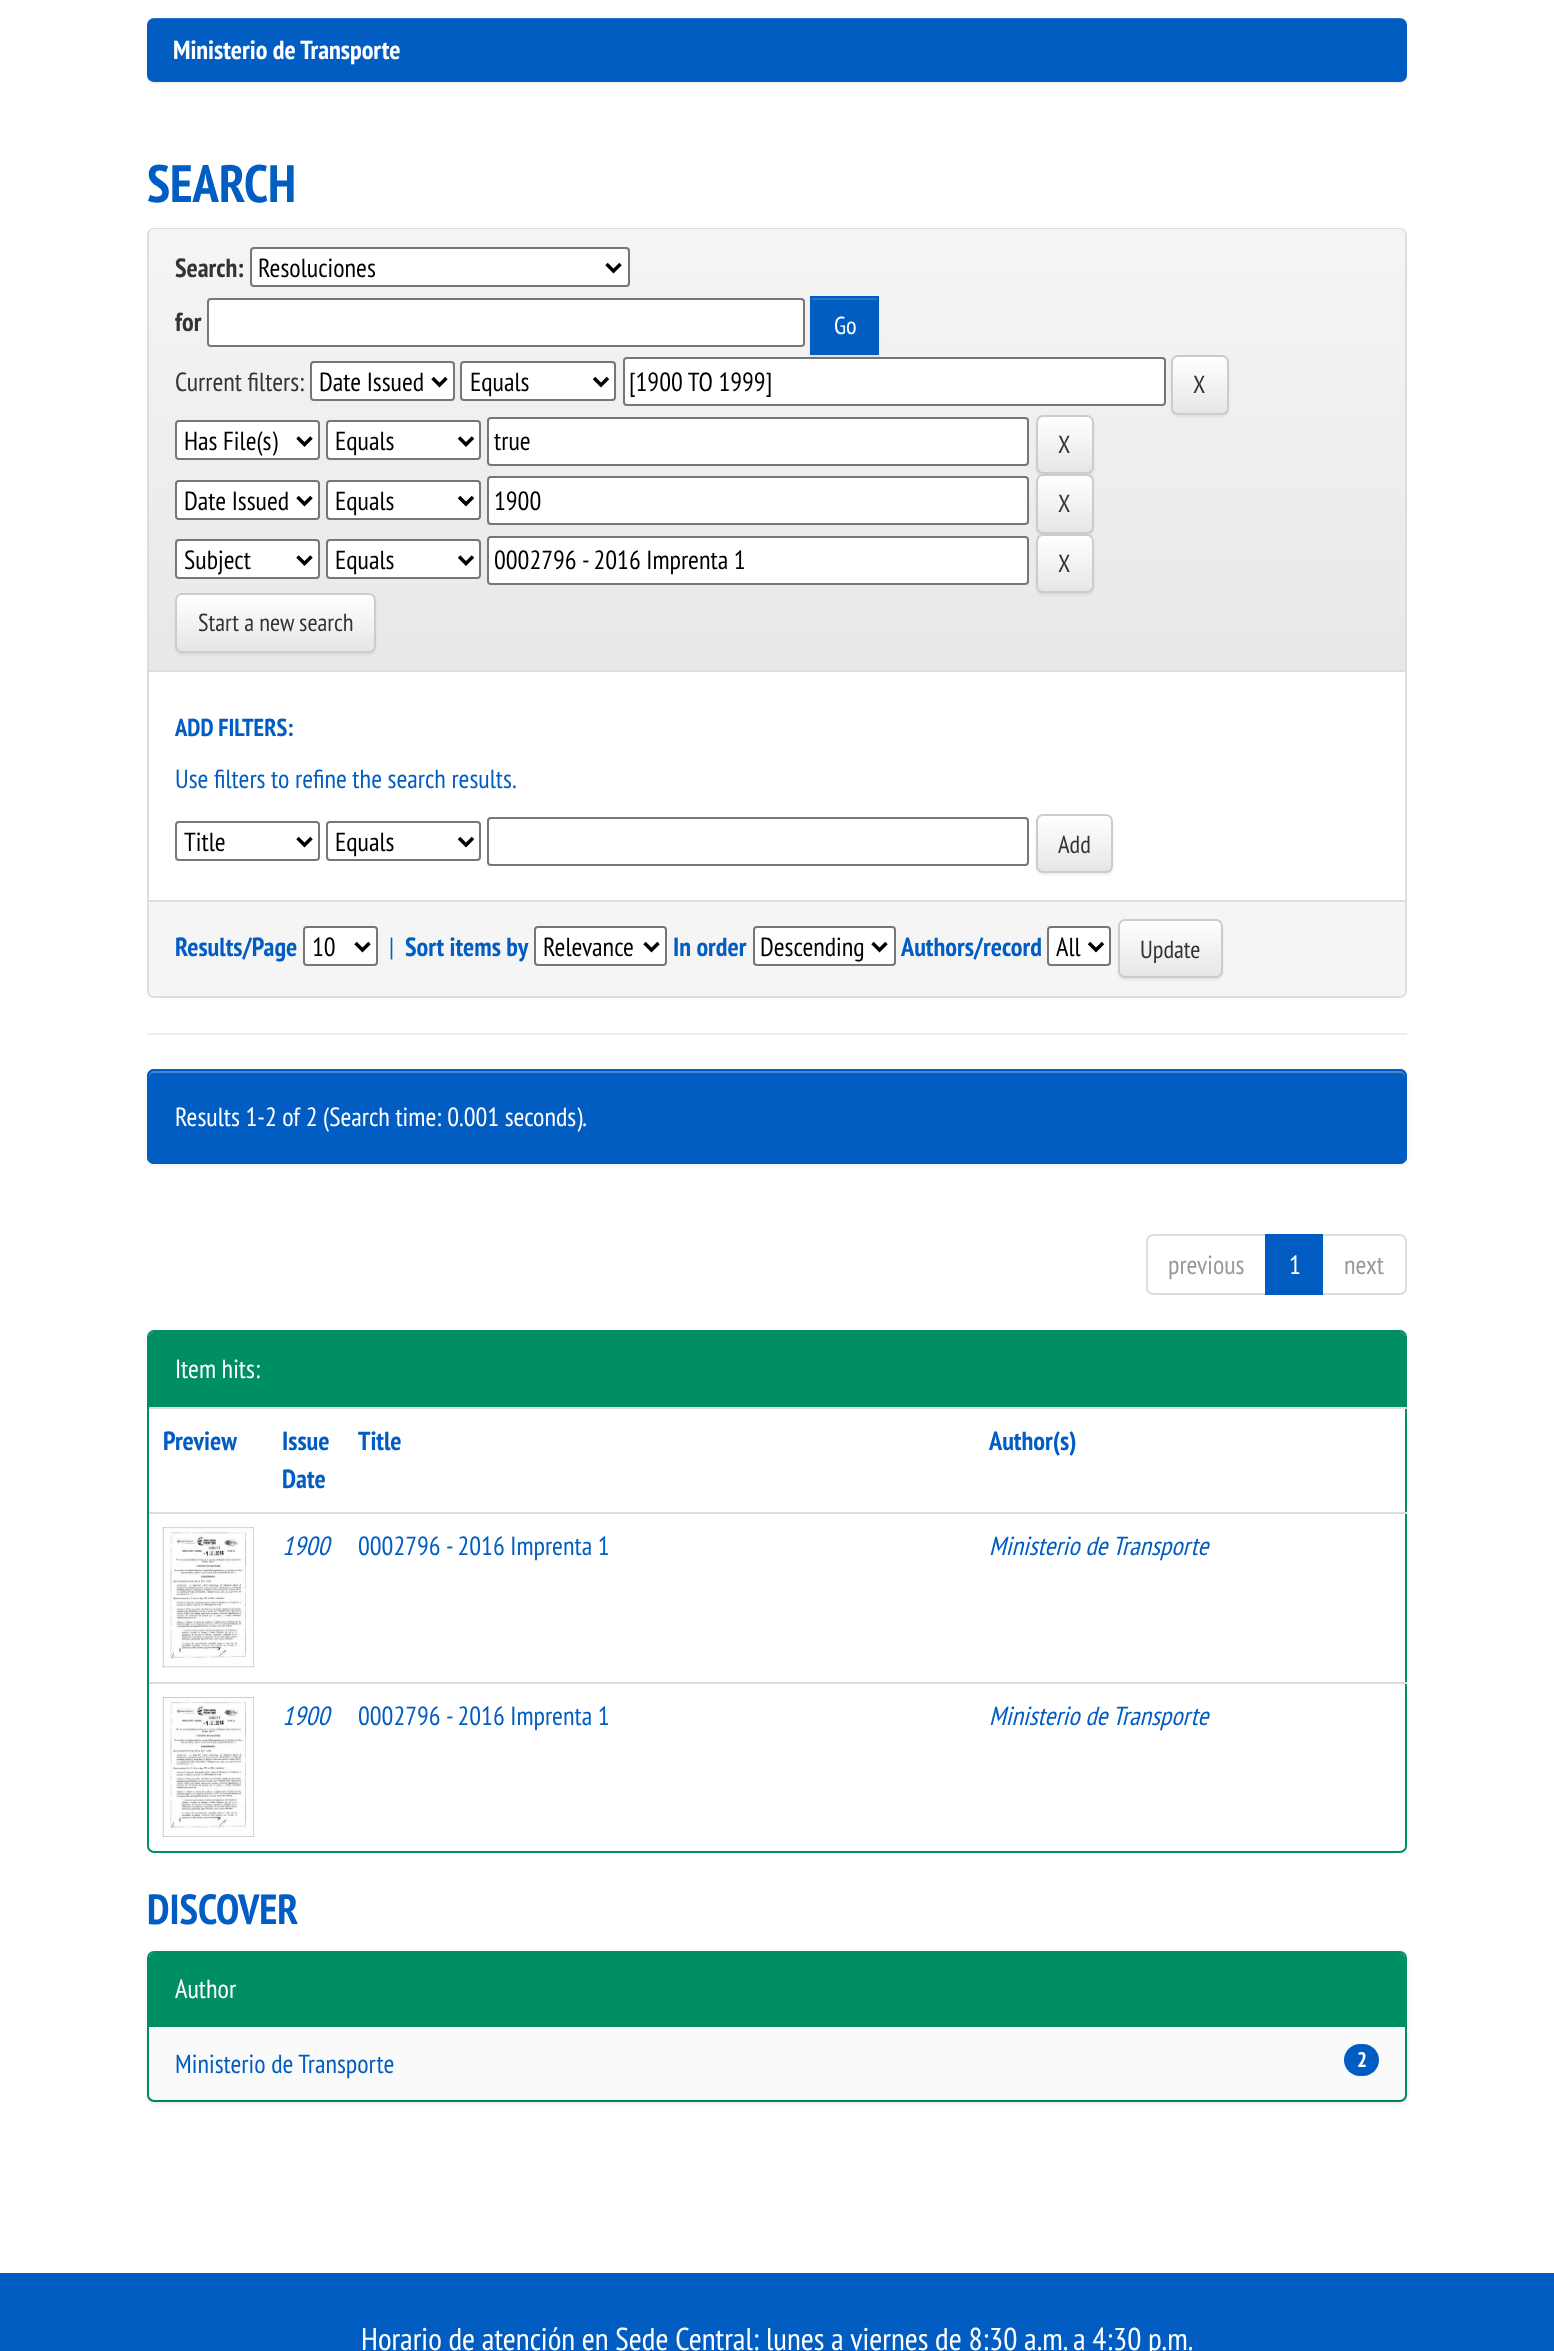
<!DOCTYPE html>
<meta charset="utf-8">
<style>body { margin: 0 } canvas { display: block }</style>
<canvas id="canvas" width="1554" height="2351"></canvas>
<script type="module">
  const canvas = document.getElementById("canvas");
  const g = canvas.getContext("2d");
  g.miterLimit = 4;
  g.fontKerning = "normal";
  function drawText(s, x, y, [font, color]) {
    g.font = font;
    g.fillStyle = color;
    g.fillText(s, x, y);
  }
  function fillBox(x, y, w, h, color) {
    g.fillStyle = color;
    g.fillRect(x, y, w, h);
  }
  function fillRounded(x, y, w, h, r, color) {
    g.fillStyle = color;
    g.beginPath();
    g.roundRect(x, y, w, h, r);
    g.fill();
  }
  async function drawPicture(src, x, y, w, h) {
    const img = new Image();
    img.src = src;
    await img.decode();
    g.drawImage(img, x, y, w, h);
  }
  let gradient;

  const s1 = ["bold 26.25px PT Sans Narrow", "#FFFFFF"];
  const s2 = ["bold 52.5px PT Sans Narrow", "#025DC3"];
  const s3 = ["bold 26.25px PT Sans Narrow", "#333333"];
  const s4 = ["26.25px PT Sans Narrow", "#000000"];
  const s5 = ["24.5px PT Sans Narrow", "#FFFFFF"];
  const s6 = ["26.25px PT Sans Narrow", "#333333"];
  const s7 = ["24.5px PT Sans Narrow", "#333333"];
  const s8 = ["bold 24.5px PT Sans Narrow", "#025DC3"];
  const s9 = ["26.25px PT Sans Narrow", "#025DC3"];
  const s10 = ["bold 26.25px PT Sans Narrow", "#025DC3"];
  const s11 = ["26.25px PT Sans Narrow", "#FFFFFF"];
  const s12 = ["26.25px PT Sans Narrow", "#999999"];
  const s13 = ["italic 26.25px PT Sans Narrow", "#025DC3"];
  const s14 = ["bold 42px PT Sans Narrow", "#025DC3"];
  const s15 = ["bold 21px PT Sans Narrow", "#FFFFFF"];
  const s16 = ["31.5px PT Sans Narrow", "#FFFFFF"];

  fillBox(0, 0, 1554, 2351, "#FFFFFF");
  g.fillStyle = "rgba(0, 0, 0, 0.07)";
  g.filter = "blur(1px)";
  g.beginPath();
  g.roundRect(147, 19, 1260, 65, 7);
  g.fill();
  g.filter = "none";
  fillRounded(147, 18, 1260, 64, 7, "#025DC3");
  g.fillStyle = "rgba(255, 255, 255, 0.15)";
  g.beginPath();
  g.moveTo(154, 19);
  g.lineTo(1400, 19);
  g.bezierCurveTo(1404, 19, 1407, 22, 1407, 26);
  g.bezierCurveTo(1407, 22, 1405, 18, 1400, 18);
  g.lineTo(154, 18);
  g.bezierCurveTo(149, 18, 147, 22, 147, 26);
  g.bezierCurveTo(147, 22, 150, 19, 154, 19);
  g.closePath();
  g.fill();
  drawText("Ministerio de Transporte", 173, 59, s1);
  drawText("SEARCH", 147, 202, s2);
  g.beginPath();
  g.roundRect(148, 229, 1258, 768, 6);
  g.strokeStyle = "#DDDDDD";
  g.lineWidth = 2;
  g.stroke();
  gradient = g.createLinearGradient(777, 229, 777, 670);
  gradient.addColorStop(0, "#F5F5F5");
  gradient.addColorStop(1, "#E8E8E8");
  g.fillStyle = gradient;
  g.beginPath();
  g.roundRect(149, 229, 1256, 441, [5, 5, 0, 0]);
  g.fill();
  fillBox(149, 670, 1256, 2, "#DDDDDD");
  drawText("Search:", 175, 277, s3);
  g.fillStyle = "#FFFFFF";
  g.beginPath();
  g.roundRect(251, 248, 378, 38, 3);
  g.fill();
  g.strokeStyle = "#767676";
  g.stroke();
  g.beginPath();
  g.moveTo(606.5, 264);
  g.lineTo(613.5, 271);
  g.lineTo(620.5, 264);
  g.strokeStyle = "#000000";
  g.lineWidth = 3.5;
  g.stroke();
  drawText("Resoluciones", 258, 277, s4);
  drawText("for", 175, 331, s3);
  g.fillStyle = "#FFFFFF";
  g.beginPath();
  g.roundRect(208, 299, 596, 47, 3);
  g.fill();
  g.strokeStyle = "#767676";
  g.lineWidth = 2;
  g.stroke();
  g.beginPath();
  g.roundRect(624, 358, 541, 47, 3);
  g.fill();
  g.stroke();
  g.fillStyle = "rgba(0, 0, 0, 0.07)";
  g.filter = "blur(1px)";
  g.beginPath();
  g.rect(810, 298, 69, 59);
  g.fill();
  g.filter = "none";
  fillBox(810, 296, 69, 59, "#025DC3");
  fillBox(812, 298, 65, 2, "#2875CC");
  drawText("Go", 834, 334, s5);
  drawText("Current filters:", 175, 391, s6);
  g.fillStyle = "#FFFFFF";
  g.beginPath();
  g.roundRect(311, 362, 143, 38, 3);
  g.fill();
  g.stroke();
  g.beginPath();
  g.moveTo(432.5, 378);
  g.lineTo(439.5, 385);
  g.lineTo(446.5, 378);
  g.strokeStyle = "#000000";
  g.lineWidth = 3.5;
  g.stroke();
  drawText("Date Issued", 319, 391, s4);
  g.fillStyle = "#FFFFFF";
  g.beginPath();
  g.roundRect(461, 362, 154, 38, 3);
  g.fill();
  g.strokeStyle = "#767676";
  g.lineWidth = 2;
  g.stroke();
  g.beginPath();
  g.moveTo(594, 378);
  g.lineTo(601, 385);
  g.lineTo(608, 378);
  g.strokeStyle = "#000000";
  g.lineWidth = 3.5;
  g.stroke();
  drawText("Equals", 470, 391, s4);
  drawText("[1900 TO 1999]", 629, 391, s4);
  g.fillStyle = "rgba(0, 0, 0, 0.07)";
  g.filter = "blur(1px)";
  g.beginPath();
  g.roundRect(1171, 357, 58, 60, 7);
  g.fill();
  g.filter = "none";
  g.save();
  g.beginPath();
  g.roundRect(1171, 355, 58, 60, 7);
  g.clip();
  gradient = g.createLinearGradient(1200, 357, 1200, 413);
  gradient.addColorStop(0, "#FFFFFF");
  gradient.addColorStop(1, "#E6E6E6");
  g.fillStyle = gradient;
  g.fillRect(1171, 357, 58, 56);
  g.restore();
  g.beginPath();
  g.roundRect(1172, 356, 56, 58, 6);
  g.strokeStyle = "#CCCCCC";
  g.lineWidth = 2;
  g.stroke();
  drawText("X", 1193, 393, s7);
  g.fillStyle = "#FFFFFF";
  g.beginPath();
  g.roundRect(176, 421, 143, 38, 3);
  g.fill();
  g.strokeStyle = "#767676";
  g.stroke();
  g.beginPath();
  g.moveTo(297.5, 437.5);
  g.lineTo(304.5, 444.5);
  g.lineTo(311.5, 437.5);
  g.strokeStyle = "#000000";
  g.lineWidth = 3.5;
  g.stroke();
  drawText("Has File(s)", 184, 450, s4);
  g.fillStyle = "#FFFFFF";
  g.beginPath();
  g.roundRect(327, 421, 153, 38, 3);
  g.fill();
  g.strokeStyle = "#767676";
  g.lineWidth = 2;
  g.stroke();
  g.beginPath();
  g.moveTo(459, 437.5);
  g.lineTo(466, 444.5);
  g.lineTo(473, 437.5);
  g.strokeStyle = "#000000";
  g.lineWidth = 3.5;
  g.stroke();
  drawText("Equals", 335, 450, s4);
  g.fillStyle = "#FFFFFF";
  g.beginPath();
  g.roundRect(488, 418, 540, 47, 3);
  g.fill();
  g.strokeStyle = "#767676";
  g.lineWidth = 2;
  g.stroke();
  drawText("true", 494, 450, s4);
  g.fillStyle = "rgba(0, 0, 0, 0.07)";
  g.filter = "blur(1px)";
  g.beginPath();
  g.roundRect(1036, 417, 58, 59, 7);
  g.fill();
  g.filter = "none";
  g.save();
  g.beginPath();
  g.roundRect(1036, 415, 58, 59, 7);
  g.clip();
  gradient = g.createLinearGradient(1065, 417, 1065, 473);
  gradient.addColorStop(0, "#FFFFFF");
  gradient.addColorStop(1, "#E6E6E6");
  g.fillStyle = gradient;
  g.fillRect(1036, 417, 58, 56);
  g.restore();
  g.beginPath();
  g.roundRect(1037, 416, 56, 57, 6);
  g.strokeStyle = "#CCCCCC";
  g.stroke();
  drawText("X", 1058, 453, s7);
  g.fillStyle = "#FFFFFF";
  g.beginPath();
  g.roundRect(176, 481, 143, 38, 3);
  g.fill();
  g.strokeStyle = "#767676";
  g.stroke();
  g.beginPath();
  g.moveTo(297.5, 497);
  g.lineTo(304.5, 504);
  g.lineTo(311.5, 497);
  g.strokeStyle = "#000000";
  g.lineWidth = 3.5;
  g.stroke();
  drawText("Date Issued", 184, 510, s4);
  g.fillStyle = "#FFFFFF";
  g.beginPath();
  g.roundRect(327, 481, 153, 38, 3);
  g.fill();
  g.strokeStyle = "#767676";
  g.lineWidth = 2;
  g.stroke();
  g.beginPath();
  g.moveTo(459, 497);
  g.lineTo(466, 504);
  g.lineTo(473, 497);
  g.strokeStyle = "#000000";
  g.lineWidth = 3.5;
  g.stroke();
  drawText("Equals", 335, 510, s4);
  g.fillStyle = "#FFFFFF";
  g.beginPath();
  g.roundRect(488, 477, 540, 47, 3);
  g.fill();
  g.strokeStyle = "#767676";
  g.lineWidth = 2;
  g.stroke();
  drawText("1900", 494, 510, s4);
  g.fillStyle = "rgba(0, 0, 0, 0.07)";
  g.filter = "blur(1px)";
  g.beginPath();
  g.roundRect(1036, 476, 58, 60, 7);
  g.fill();
  g.filter = "none";
  g.save();
  g.beginPath();
  g.roundRect(1036, 474, 58, 60, 7);
  g.clip();
  gradient = g.createLinearGradient(1065, 476, 1065, 532);
  gradient.addColorStop(0, "#FFFFFF");
  gradient.addColorStop(1, "#E6E6E6");
  g.fillStyle = gradient;
  g.fillRect(1036, 476, 58, 56);
  g.restore();
  g.beginPath();
  g.roundRect(1037, 475, 56, 58, 6);
  g.strokeStyle = "#CCCCCC";
  g.stroke();
  drawText("X", 1058, 512, s7);
  g.fillStyle = "#FFFFFF";
  g.beginPath();
  g.roundRect(176, 540, 143, 38, 3);
  g.fill();
  g.strokeStyle = "#767676";
  g.stroke();
  g.beginPath();
  g.moveTo(297.5, 556.5);
  g.lineTo(304.5, 563.5);
  g.lineTo(311.5, 556.5);
  g.strokeStyle = "#000000";
  g.lineWidth = 3.5;
  g.stroke();
  drawText("Subject", 184, 569, s4);
  g.fillStyle = "#FFFFFF";
  g.beginPath();
  g.roundRect(327, 540, 153, 38, 3);
  g.fill();
  g.strokeStyle = "#767676";
  g.lineWidth = 2;
  g.stroke();
  g.beginPath();
  g.moveTo(459, 556.5);
  g.lineTo(466, 563.5);
  g.lineTo(473, 556.5);
  g.strokeStyle = "#000000";
  g.lineWidth = 3.5;
  g.stroke();
  drawText("Equals", 335, 569, s4);
  g.fillStyle = "#FFFFFF";
  g.beginPath();
  g.roundRect(488, 537, 540, 47, 3);
  g.fill();
  g.strokeStyle = "#767676";
  g.lineWidth = 2;
  g.stroke();
  drawText("0002796 - 2016 Imprenta 1", 494, 569, s4);
  g.fillStyle = "rgba(0, 0, 0, 0.07)";
  g.filter = "blur(1px)";
  g.beginPath();
  g.roundRect(1036, 536, 58, 59, 7);
  g.fill();
  g.filter = "none";
  g.save();
  g.beginPath();
  g.roundRect(1036, 534, 58, 59, 7);
  g.clip();
  gradient = g.createLinearGradient(1065, 536, 1065, 592);
  gradient.addColorStop(0, "#FFFFFF");
  gradient.addColorStop(1, "#E6E6E6");
  g.fillStyle = gradient;
  g.fillRect(1036, 536, 58, 56);
  g.restore();
  g.beginPath();
  g.roundRect(1037, 535, 56, 57, 6);
  g.strokeStyle = "#CCCCCC";
  g.stroke();
  drawText("X", 1058, 572, s7);
  g.fillStyle = "rgba(0, 0, 0, 0.07)";
  g.filter = "blur(1px)";
  g.beginPath();
  g.roundRect(175, 595, 201, 60, 7);
  g.fill();
  g.filter = "none";
  g.save();
  g.beginPath();
  g.roundRect(175, 593, 201, 60, 7);
  g.clip();
  gradient = g.createLinearGradient(276, 595, 276, 651);
  gradient.addColorStop(0, "#FFFFFF");
  gradient.addColorStop(1, "#E6E6E6");
  g.fillStyle = gradient;
  g.fillRect(175, 595, 201, 56);
  g.restore();
  g.fillStyle = "rgba(255, 255, 255, 0.15)";
  g.beginPath();
  g.moveTo(182, 597);
  g.lineTo(369, 597);
  g.bezierCurveTo(372, 597, 374, 599, 374, 602);
  g.lineTo(374, 649);
  g.bezierCurveTo(375, 648, 375, 647, 375, 646);
  g.lineTo(375, 600);
  g.bezierCurveTo(375, 597, 373, 595, 370, 595);
  g.lineTo(182, 595);
  g.bezierCurveTo(179, 595, 177, 597, 177, 600);
  g.lineTo(177, 602);
  g.bezierCurveTo(177, 599, 179, 597, 182, 597);
  g.closePath();
  g.fill();
  g.beginPath();
  g.roundRect(176, 594, 199, 58, 6);
  g.stroke();
  drawText("Start a new search", 198, 631, s7);
  drawText("ADD FILTERS:", 175, 736, s8);
  drawText("Use filters to refine the search results.", 175, 788, s9);
  g.beginPath();
  g.roundRect(176, 822, 143, 38, 3);
  g.strokeStyle = "#767676";
  g.stroke();
  g.beginPath();
  g.moveTo(297.5, 838);
  g.lineTo(304.5, 845);
  g.lineTo(311.5, 838);
  g.strokeStyle = "#000000";
  g.lineWidth = 3.5;
  g.stroke();
  drawText("Title", 184, 851, s4);
  g.beginPath();
  g.roundRect(327, 822, 153, 38, 3);
  g.strokeStyle = "#767676";
  g.lineWidth = 2;
  g.stroke();
  g.beginPath();
  g.moveTo(459, 838);
  g.lineTo(466, 845);
  g.lineTo(473, 838);
  g.strokeStyle = "#000000";
  g.lineWidth = 3.5;
  g.stroke();
  drawText("Equals", 335, 851, s4);
  g.beginPath();
  g.roundRect(488, 818, 540, 47, 3);
  g.strokeStyle = "#767676";
  g.lineWidth = 2;
  g.stroke();
  g.fillStyle = "rgba(0, 0, 0, 0.07)";
  g.filter = "blur(1px)";
  g.beginPath();
  g.roundRect(1036, 816, 77, 59, 7);
  g.fill();
  g.filter = "none";
  g.save();
  g.beginPath();
  g.roundRect(1036, 814, 77, 59, 7);
  g.clip();
  gradient = g.createLinearGradient(1075, 816, 1075, 872);
  gradient.addColorStop(0, "#FFFFFF");
  gradient.addColorStop(1, "#E6E6E6");
  g.fillStyle = gradient;
  g.fillRect(1036, 816, 77, 56);
  g.restore();
  g.beginPath();
  g.roundRect(1037, 815, 75, 57, 6);
  g.strokeStyle = "#CCCCCC";
  g.stroke();
  drawText("Add", 1058, 853, s7);
  g.fillStyle = "#F5F5F5";
  g.beginPath();
  g.roundRect(149, 900, 1256, 96, [0, 0, 5, 5]);
  g.fill();
  fillBox(149, 900, 1256, 2, "#DDDDDD");
  drawText("Results/Page", 175, 956, s10);
  g.fillStyle = "#FFFFFF";
  g.beginPath();
  g.roundRect(304, 927, 73, 38, 3);
  g.fill();
  g.strokeStyle = "#767676";
  g.stroke();
  g.beginPath();
  g.moveTo(355.5, 943);
  g.lineTo(362.5, 950);
  g.lineTo(369.5, 943);
  g.strokeStyle = "#000000";
  g.lineWidth = 3.5;
  g.stroke();
  drawText("10", 312, 956, s4);
  drawText("|", 389, 956, s9);
  drawText("Sort items by", 405, 956, s10);
  g.fillStyle = "#FFFFFF";
  g.beginPath();
  g.roundRect(535, 927, 131, 38, 3);
  g.fill();
  g.strokeStyle = "#767676";
  g.lineWidth = 2;
  g.stroke();
  g.beginPath();
  g.moveTo(644.5, 943);
  g.lineTo(651.5, 950);
  g.lineTo(658.5, 943);
  g.strokeStyle = "#000000";
  g.lineWidth = 3.5;
  g.stroke();
  drawText("Relevance", 543, 956, s4);
  drawText("In order", 673, 956, s10);
  g.fillStyle = "#FFFFFF";
  g.beginPath();
  g.roundRect(754, 927, 141, 38, 3);
  g.fill();
  g.strokeStyle = "#767676";
  g.lineWidth = 2;
  g.stroke();
  g.beginPath();
  g.moveTo(872.5, 943);
  g.lineTo(879.5, 950);
  g.lineTo(886.5, 943);
  g.strokeStyle = "#000000";
  g.lineWidth = 3.5;
  g.stroke();
  drawText("Descending", 760, 956, s4);
  drawText("Authors/record", 901, 956, s10);
  g.fillStyle = "#FFFFFF";
  g.beginPath();
  g.roundRect(1048, 927, 62, 38, 3);
  g.fill();
  g.strokeStyle = "#767676";
  g.lineWidth = 2;
  g.stroke();
  g.beginPath();
  g.moveTo(1089, 943);
  g.lineTo(1096, 950);
  g.lineTo(1103, 943);
  g.strokeStyle = "#000000";
  g.lineWidth = 3.5;
  g.stroke();
  drawText("All", 1056, 956, s4);
  g.fillStyle = "rgba(0, 0, 0, 0.07)";
  g.filter = "blur(1px)";
  g.beginPath();
  g.roundRect(1118, 921, 105, 59, 7);
  g.fill();
  g.filter = "none";
  g.save();
  g.beginPath();
  g.roundRect(1118, 919, 105, 59, 7);
  g.clip();
  gradient = g.createLinearGradient(1171, 921, 1171, 977);
  gradient.addColorStop(0, "#FFFFFF");
  gradient.addColorStop(1, "#E6E6E6");
  g.fillStyle = gradient;
  g.fillRect(1118, 921, 105, 56);
  g.restore();
  g.beginPath();
  g.roundRect(1119, 920, 103, 57, 6);
  g.strokeStyle = "#CCCCCC";
  g.lineWidth = 2;
  g.stroke();
  drawText("Update", 1140, 958, s7);
  fillBox(147, 1033, 1260, 2, "#EEEEEE");
  g.fillStyle = "rgba(0, 0, 0, 0.05)";
  g.filter = "blur(2px)";
  g.beginPath();
  g.roundRect(147, 1071, 1260, 95, 7);
  g.fill();
  g.filter = "none";
  fillRounded(147, 1069, 1260, 95, 7, "#025DC3");
  g.fillStyle = "#4186D2";
  g.beginPath();
  g.moveTo(154, 1073);
  g.lineTo(1400, 1073);
  g.bezierCurveTo(1403, 1073, 1405, 1075, 1405, 1078);
  g.lineTo(1405, 1076);
  g.bezierCurveTo(1405, 1073, 1403, 1071, 1400, 1071);
  g.lineTo(154, 1071);
  g.bezierCurveTo(151, 1071, 149, 1073, 149, 1076);
  g.lineTo(149, 1078);
  g.bezierCurveTo(149, 1075, 151, 1073, 154, 1073);
  g.closePath();
  g.fill();
  g.beginPath();
  g.roundRect(148, 1070, 1258, 93, 6);
  g.strokeStyle = "#025DC3";
  g.stroke();
  drawText("Results 1-2 of 2 (Search time: 0.001 seconds).", 175, 1126, s11);
  g.beginPath();
  g.roundRect(1147, 1235, 119, 59, [6, 0, 0, 6]);
  g.strokeStyle = "#DDDDDD";
  g.stroke();
  drawText("previous", 1168, 1274, s12);
  g.beginPath();
  g.roundRect(1322, 1235, 84, 59, [0, 6, 6, 0]);
  g.stroke();
  fillBox(1265, 1234, 58, 61, "#025DC3");
  drawText("1", 1289, 1274, s11);
  drawText("next", 1344, 1274, s12);
  g.beginPath();
  g.roundRect(148, 1331, 1258, 521, 6);
  g.strokeStyle = "#008E65";
  g.stroke();
  g.fillStyle = "#008E65";
  g.beginPath();
  g.roundRect(149, 1332, 1256, 75, [5, 5, 0, 0]);
  g.fill();
  drawText("Item hits:", 175, 1378, s11);
  drawText("Preview", 163, 1450, s10);
  drawText("Issue", 282, 1450, s10);
  drawText("Date", 282, 1488, s10);
  drawText("Title", 358, 1450, s10);
  fillBox(149, 1407, 1258, 2, "#DDDDDD");
  drawText("Author(s)", 989, 1450, s10);
  await drawPicture("pic1.png", 162, 1527, 92, 141);
  drawText("1900", 282, 1555, s13);
  drawText("0002796 - 2016 Imprenta 1", 358, 1555, s9);
  fillBox(149, 1512, 1258, 2, "#DDDDDD");
  drawText("Ministerio de Transporte", 989, 1555, s13);
  await drawPicture("pic2.png", 162, 1697, 92, 140);
  drawText("1900", 282, 1725, s13);
  drawText("0002796 - 2016 Imprenta 1", 358, 1725, s9);
  fillBox(149, 1682, 1258, 2, "#DDDDDD");
  drawText("Ministerio de Transporte", 989, 1725, s13);
  drawText("DISCOVER", 147, 1924, s14);
  g.fillStyle = "rgba(0, 0, 0, 0.05)";
  g.filter = "blur(2px)";
  g.beginPath();
  g.roundRect(147, 1953, 1260, 151, 7);
  g.fill();
  g.filter = "none";
  g.beginPath();
  g.roundRect(148, 1952, 1258, 149, 6);
  g.stroke();
  g.fillStyle = "#008E65";
  g.beginPath();
  g.roundRect(149, 1953, 1256, 74, [5, 5, 0, 0]);
  g.fill();
  drawText("Author", 175, 1998, s11);
  g.fillStyle = "rgba(0, 0, 0, 0.07)";
  g.filter = "blur(2px)";
  g.beginPath();
  g.roundRect(149, 2028, 1256, 74, 7);
  g.fill();
  g.filter = "none";
  g.fillStyle = "#FAFAFA";
  g.beginPath();
  g.roundRect(149, 2027, 1256, 73, [0, 0, 7, 7]);
  g.fill();
  drawText("Ministerio de Transporte", 175, 2073, s9);
  fillRounded(1344, 2044, 35, 32, 16, "#025DC3");
  drawText("2", 1357, 2067, s15);
  fillBox(0, 2273, 1554, 78, "#025DC3");
  drawText("Horario de atención en Sede Central: lunes a viernes de 8:30 a.m. a 4:30 p.m.", 361, 2350, s16);
</script>
